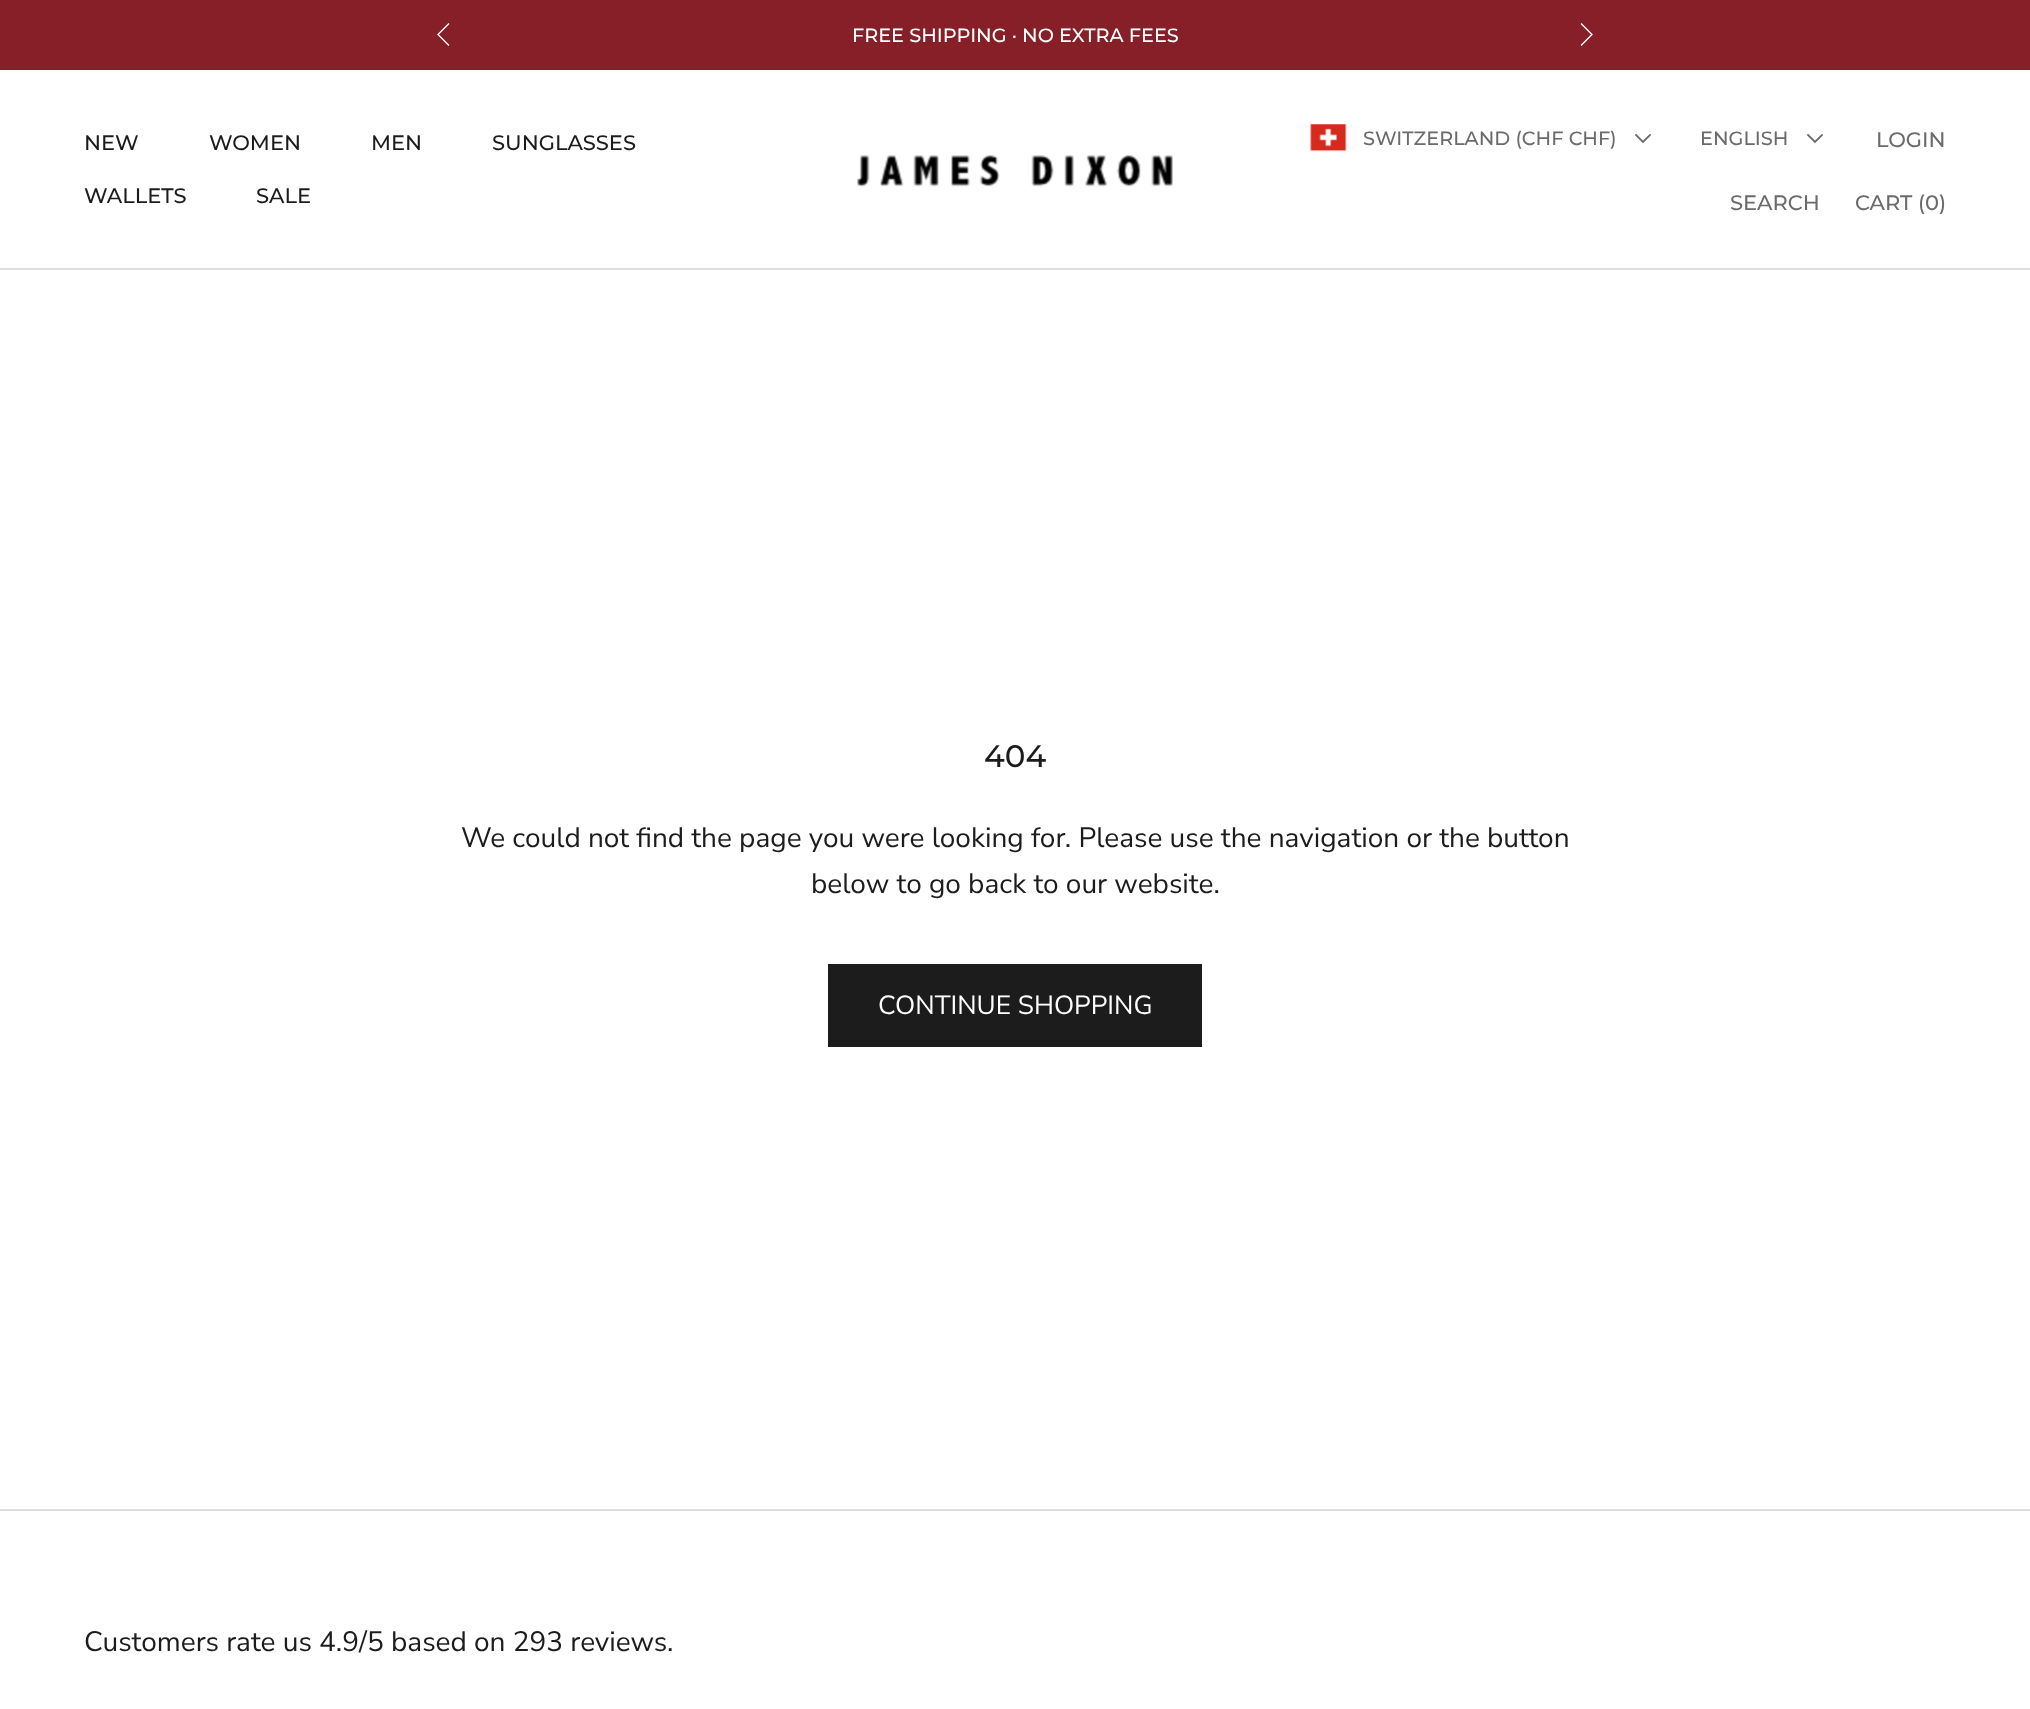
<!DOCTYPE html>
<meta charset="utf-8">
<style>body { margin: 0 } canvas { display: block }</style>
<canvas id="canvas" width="2030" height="1709"></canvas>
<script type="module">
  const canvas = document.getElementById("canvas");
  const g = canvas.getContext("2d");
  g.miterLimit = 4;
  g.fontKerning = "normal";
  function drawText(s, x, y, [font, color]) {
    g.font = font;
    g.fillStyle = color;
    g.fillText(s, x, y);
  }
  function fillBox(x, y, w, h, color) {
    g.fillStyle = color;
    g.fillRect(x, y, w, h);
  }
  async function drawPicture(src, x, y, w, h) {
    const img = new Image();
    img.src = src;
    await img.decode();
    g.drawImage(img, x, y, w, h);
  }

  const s1 = ["500 19.25px Montserrat", "#FFFFFF"];
  const s2 = ["500 21px Montserrat", "#1C1C1C"];
  const s3 = ["500 19.25px Montserrat", "#6B6B6B"];
  const s4 = ["500 21px Montserrat", "#6B6B6B"];
  const s5 = ["500 31px Montserrat", "#1C1C1C"];
  const s6 = ["28px Nunito Sans", "#1C1C1C"];
  const s7 = ["26.25px Nunito Sans", "#FFFFFF"];

  fillBox(0, 0, 2030, 1709, "#FFFFFF");
  fillBox(0, 0, 2030, 70, "#861F27");
  g.beginPath();
  g.moveTo(448.5, 24);
  g.lineTo(438, 34.5);
  g.lineTo(448.5, 45);
  g.strokeStyle = "#FFFFFF";
  g.lineWidth = 1.3;
  g.lineCap = "square";
  g.stroke();
  drawText("FREE SHIPPING · NO EXTRA FEES", 852, 42, s1);
  g.beginPath();
  g.moveTo(1581.5, 45);
  g.lineTo(1592, 34.5);
  g.lineTo(1581.5, 24);
  g.stroke();
  fillBox(0, 268, 2030, 2, "#DDDDDD");
  drawText("NEW", 84, 150, s2);
  drawText("WOMEN", 209, 150, s2);
  drawText("MEN", 371, 150, s2);
  drawText("SUNGLASSES", 492, 150, s2);
  drawText("WALLETS", 84, 203, s2);
  drawText("SALE", 256, 203, s2);
  await drawPicture("pic1.png", 857, 155, 316, 32);
  await drawPicture("pic2.png", 1310, 124, 37, 28);
  drawText("SWITZERLAND (CHF CHF)", 1363, 145, s3);
  g.beginPath();
  g.moveTo(1636, 135);
  g.lineTo(1643, 142);
  g.lineTo(1650, 135);
  g.strokeStyle = "#6B6B6B";
  g.lineWidth = 1.8;
  g.stroke();
  drawText("ENGLISH", 1700, 145, s3);
  g.beginPath();
  g.moveTo(1808, 135);
  g.lineTo(1815, 142);
  g.lineTo(1822, 135);
  g.stroke();
  drawText("LOGIN", 1876, 147, s4);
  drawText("SEARCH", 1730, 210, s4);
  drawText("CART (0)", 1855, 210, s4);
  drawText("404", 984, 767, s5);
  drawText("We could not find the page you were looking for. Please use the navigation or the button", 461, 847, s6);
  drawText("below to go back to our website.", 811, 893, s6);
  g.beginPath();
  g.rect(829, 965, 372, 81);
  g.fill();
  g.strokeStyle = "#1C1C1C";
  g.lineWidth = 2;
  g.stroke();
  drawText("CONTINUE SHOPPING", 878, 1014, s7);
  fillBox(0, 1509, 2030, 2, "#DDDDDD");
  drawText("Customers rate us 4.9/5 based on 293 reviews.", 84, 1651, s6);
</script>
